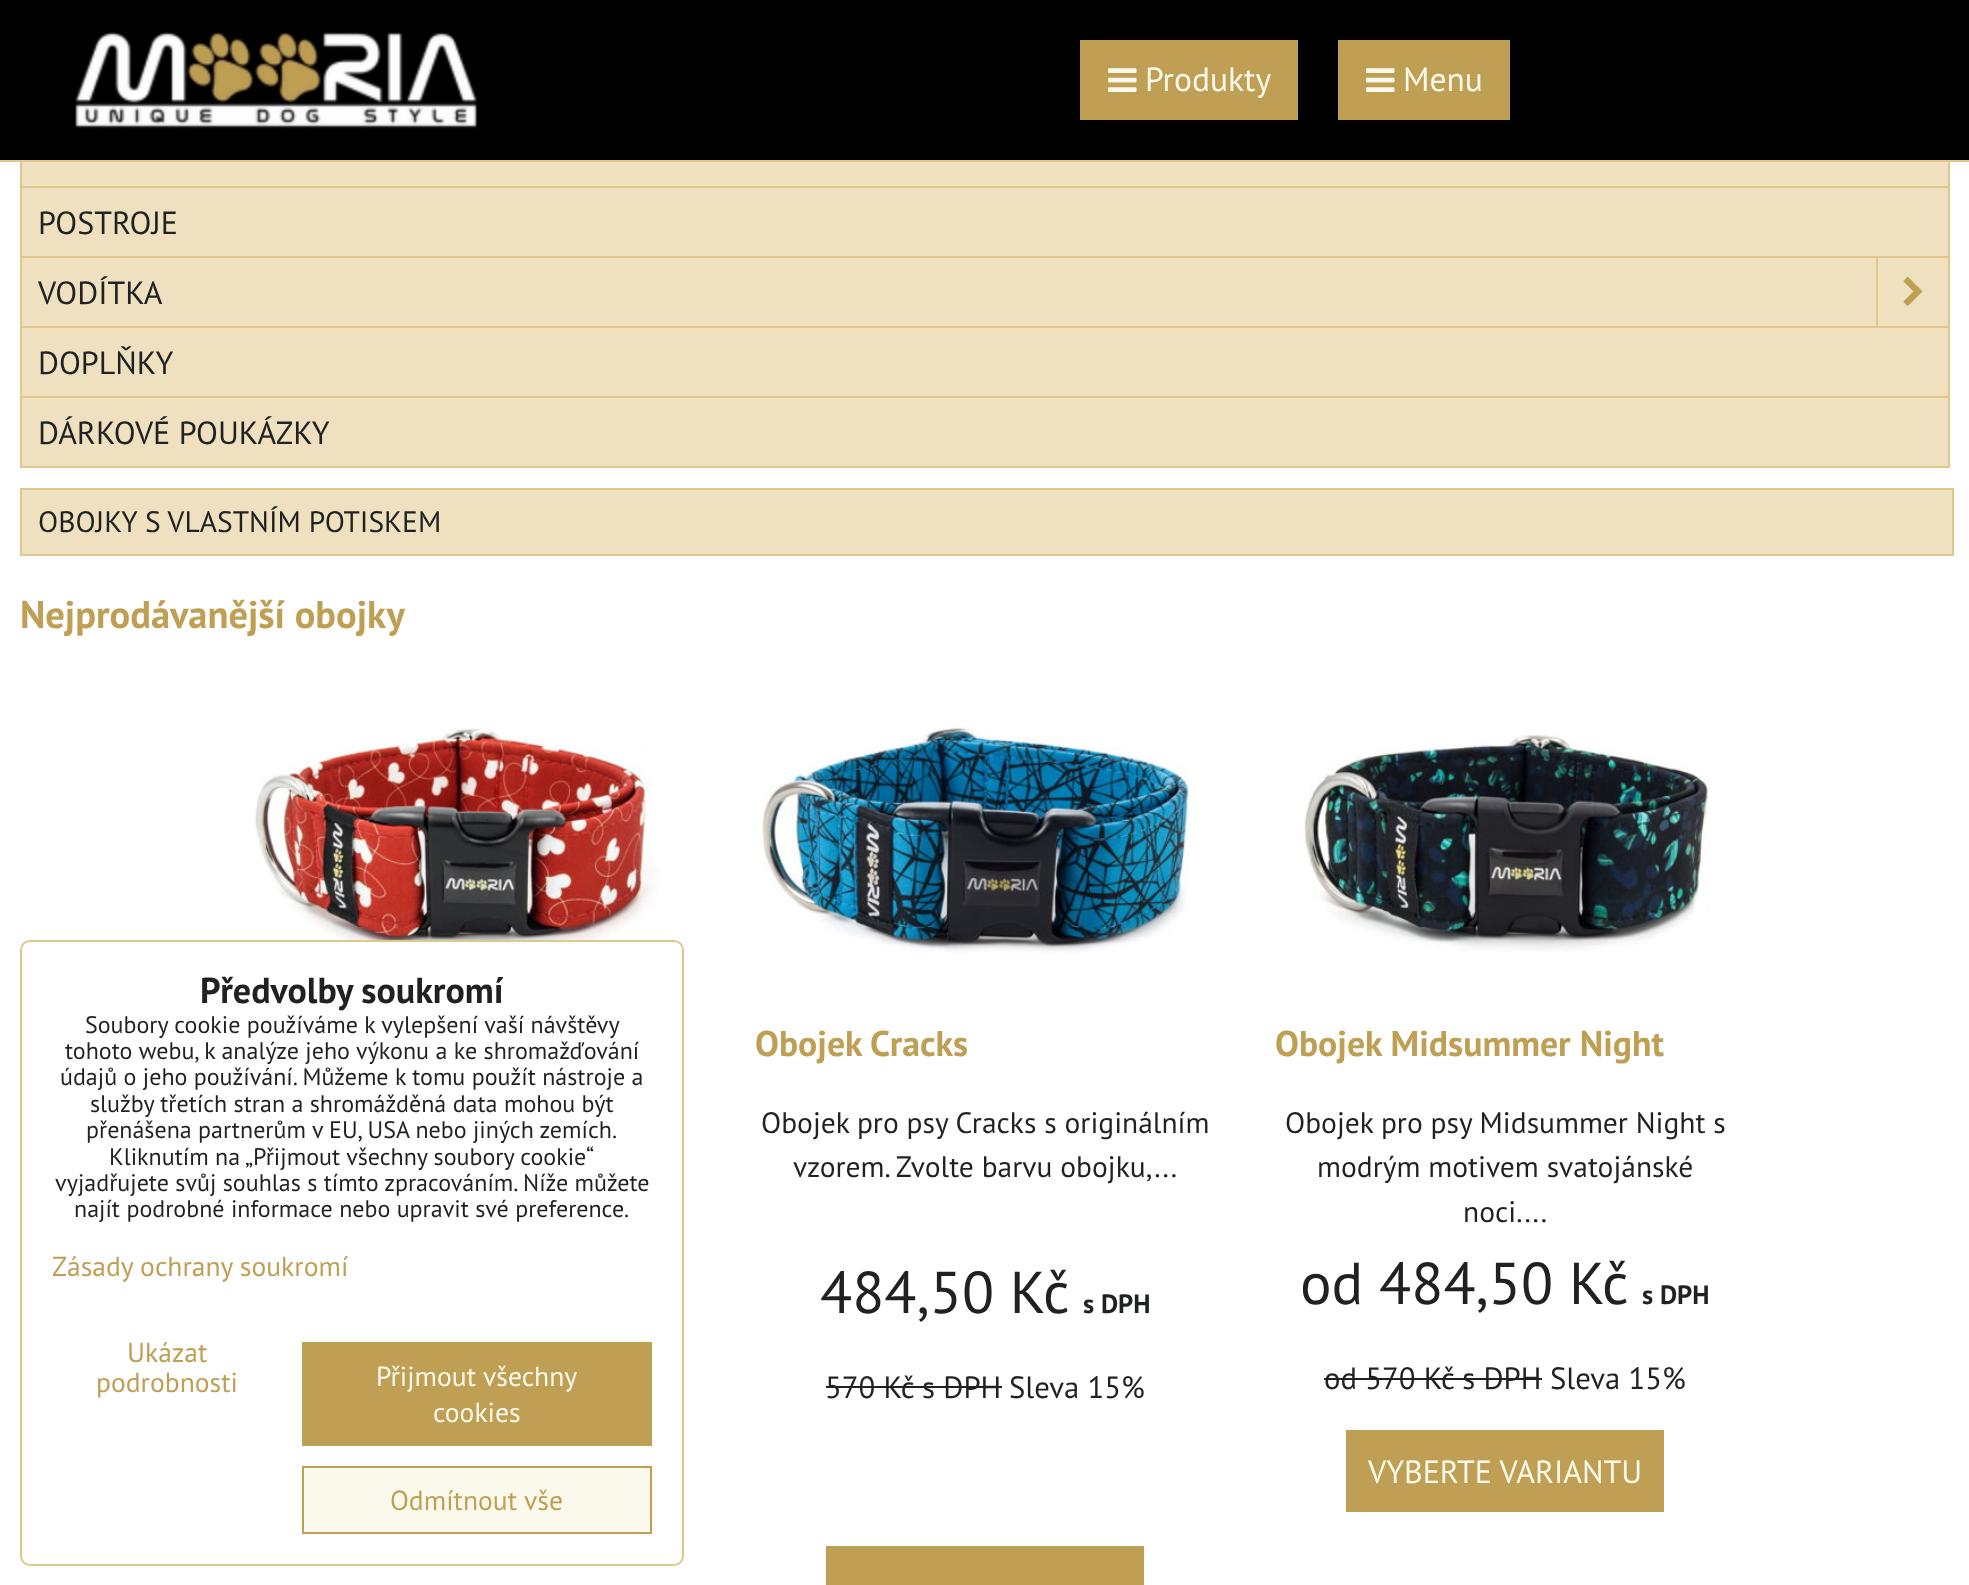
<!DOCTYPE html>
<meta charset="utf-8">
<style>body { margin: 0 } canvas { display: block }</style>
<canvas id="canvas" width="1969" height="1585"></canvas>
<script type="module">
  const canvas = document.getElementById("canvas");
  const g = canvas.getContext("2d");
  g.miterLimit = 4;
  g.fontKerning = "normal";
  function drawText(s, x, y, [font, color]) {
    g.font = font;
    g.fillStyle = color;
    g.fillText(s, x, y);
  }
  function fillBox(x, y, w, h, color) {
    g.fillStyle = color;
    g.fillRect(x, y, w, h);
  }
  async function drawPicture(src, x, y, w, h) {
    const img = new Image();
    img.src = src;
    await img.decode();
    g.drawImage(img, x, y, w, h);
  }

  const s1 = ["33.5px PT Sans", "#FAF9EB"];
  const s2 = ["32px PT Sans", "#1F2122"];
  const s3 = ["29.5px PT Sans", "#1F2122"];
  const s4 = ["bold 38.5px PT Sans", "#BF9F54"];
  const s5 = ["bold 35.75px PT Sans", "#BF9F54"];
  const s6 = ["59px PT Sans", "#1F2122"];
  const s7 = ["bold 26.5px PT Sans", "#1F2122"];
  const s8 = ["30.75px PT Sans", "#1F2122"];
  const s9 = ["32px PT Sans", "#FAF9EB"];
  const s10 = ["bold 36px PT Sans", "#1F2122"];
  const s11 = ["24px PT Sans", "#1F2122"];
  const s12 = ["27.6px PT Sans", "#BF9F54"];
  const s13 = ["27.6px PT Sans", "#FAF9EB"];

  fillBox(0, 0, 1969, 1585, "#FFFFFF");
  fillBox(22, 162, 1926, 304, "#EFE1BF");
  g.strokeStyle = "#E0C88C";
  g.lineWidth = 2;
  g.strokeRect(21, -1, 1928, 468);
  fillBox(0, 0, 1969, 160, "#000000");
  fillBox(0, 160, 1969, 2, "#E0C88C");
  await drawPicture("pic1.png", 75, 24, 403, 105);
  fillBox(1080, 40, 218, 80, "#BF9F54");
  await drawPicture("pic2.png", 1108, 68, 29, 24);
  drawText("Produkty", 1145, 91, s1);
  fillBox(1338, 40, 172, 80, "#BF9F54");
  await drawPicture("pic2.png", 1366, 68, 29, 24);
  drawText("Menu", 1403, 91, s1);
  fillBox(22, 186, 1926, 2, "#E0C88C");
  fillBox(22, 256, 1926, 2, "#E0C88C");
  drawText("POSTROJE", 38, 234, s2);
  fillBox(22, 326, 1926, 2, "#E0C88C");
  drawText("VODÍTKA", 38, 304, s2);
  fillBox(1876, 258, 2, 68, "#E0C88C");
  await drawPicture("pic3.png", 1903, 277, 20, 29);
  fillBox(22, 396, 1926, 2, "#E0C88C");
  drawText("DOPLŇKY", 38, 374, s2);
  drawText("DÁRKOVÉ POUKÁZKY", 38, 444, s2);
  g.fillStyle = "#EFE1BF";
  g.beginPath();
  g.rect(21, 489, 1932, 66);
  g.fill();
  g.stroke();
  drawText("OBOJKY S VLASTNÍM POTISKEM", 38, 532, s3);
  drawText("Nejprodávanější obojky", 20, 628, s4);
  await drawPicture("pic4.png", 254, 728, 407, 212);
  await drawPicture("pic5.png", 757, 727, 433, 226);
  drawText("Obojek Cracks", 755, 1056, s5);
  drawText("Obojek pro psy Cracks s originálním", 761, 1133, s3);
  drawText("vzorem. Zvolte barvu obojku,...", 793, 1177, s3);
  drawText("484,50 Kč", 820, 1313, s6);
  drawText("s DPH", 1083, 1313, s7);
  drawText("570 Kč s DPH", 825, 1398, s8);
  fillBox(826, 1386, 176, 2, "#1F2122");
  drawText("Sleva 15%", 1009, 1398, s8);
  fillBox(826, 1546, 318, 39, "#BF9F54");
  await drawPicture("pic6.png", 1303, 730, 407, 222);
  drawText("Obojek Midsummer Night", 1275, 1056, s5);
  drawText("Obojek pro psy Midsummer Night s", 1285, 1133, s3);
  drawText("modrým motivem svatojánské", 1317, 1177, s3);
  drawText("noci....", 1463, 1222, s3);
  drawText("od 484,50 Kč", 1300, 1304, s6);
  drawText("s DPH", 1642, 1304, s7);
  drawText("od 570 Kč s DPH", 1324, 1389, s8);
  fillBox(1324, 1378, 218, 2, "#1F2122");
  drawText("Sleva 15%", 1550, 1389, s8);
  fillBox(1346, 1430, 318, 82, "#BF9F54");
  drawText("VYBERTE VARIANTU", 1368, 1483, s9);
  g.beginPath();
  g.roundRect(21, 941, 662, 624, 9);
  g.stroke();
  drawText("Předvolby soukromí", 200, 1003, s10);
  drawText("Soubory cookie používáme k vylepšení vaší návštěvy", 85, 1033, s11);
  drawText("tohoto webu, k analýze jeho výkonu a ke shromažďování", 65, 1059, s11);
  drawText("údajů o jeho používání. Můžeme k tomu použít nástroje a", 60, 1085, s11);
  drawText("služby třetích stran a shromážděná data mohou být", 90, 1112, s11);
  drawText("přenášena partnerům v EU, USA nebo jiných zemích.", 86, 1138, s11);
  drawText("Kliknutím na „Přijmout všechny soubory cookie“", 109, 1165, s11);
  drawText("vyjadřujete svůj souhlas s tímto zpracováním. Níže můžete", 55, 1191, s11);
  drawText("najít podrobné informace nebo upravit své preference.", 74, 1217, s11);
  drawText("Zásady ochrany soukromí", 52, 1276, s12);
  drawText("Ukázat", 127, 1362, s12);
  drawText("podrobnosti", 96, 1392, s12);
  fillBox(302, 1342, 350, 104, "#BF9F54");
  drawText("Přijmout všechny", 376, 1386, s13);
  drawText("cookies", 433, 1422, s13);
  g.beginPath();
  g.rect(303, 1467, 348, 66);
  g.fill();
  g.strokeStyle = "#BF9F54";
  g.stroke();
  drawText("Odmítnout vše", 390, 1510, s12);
</script>
